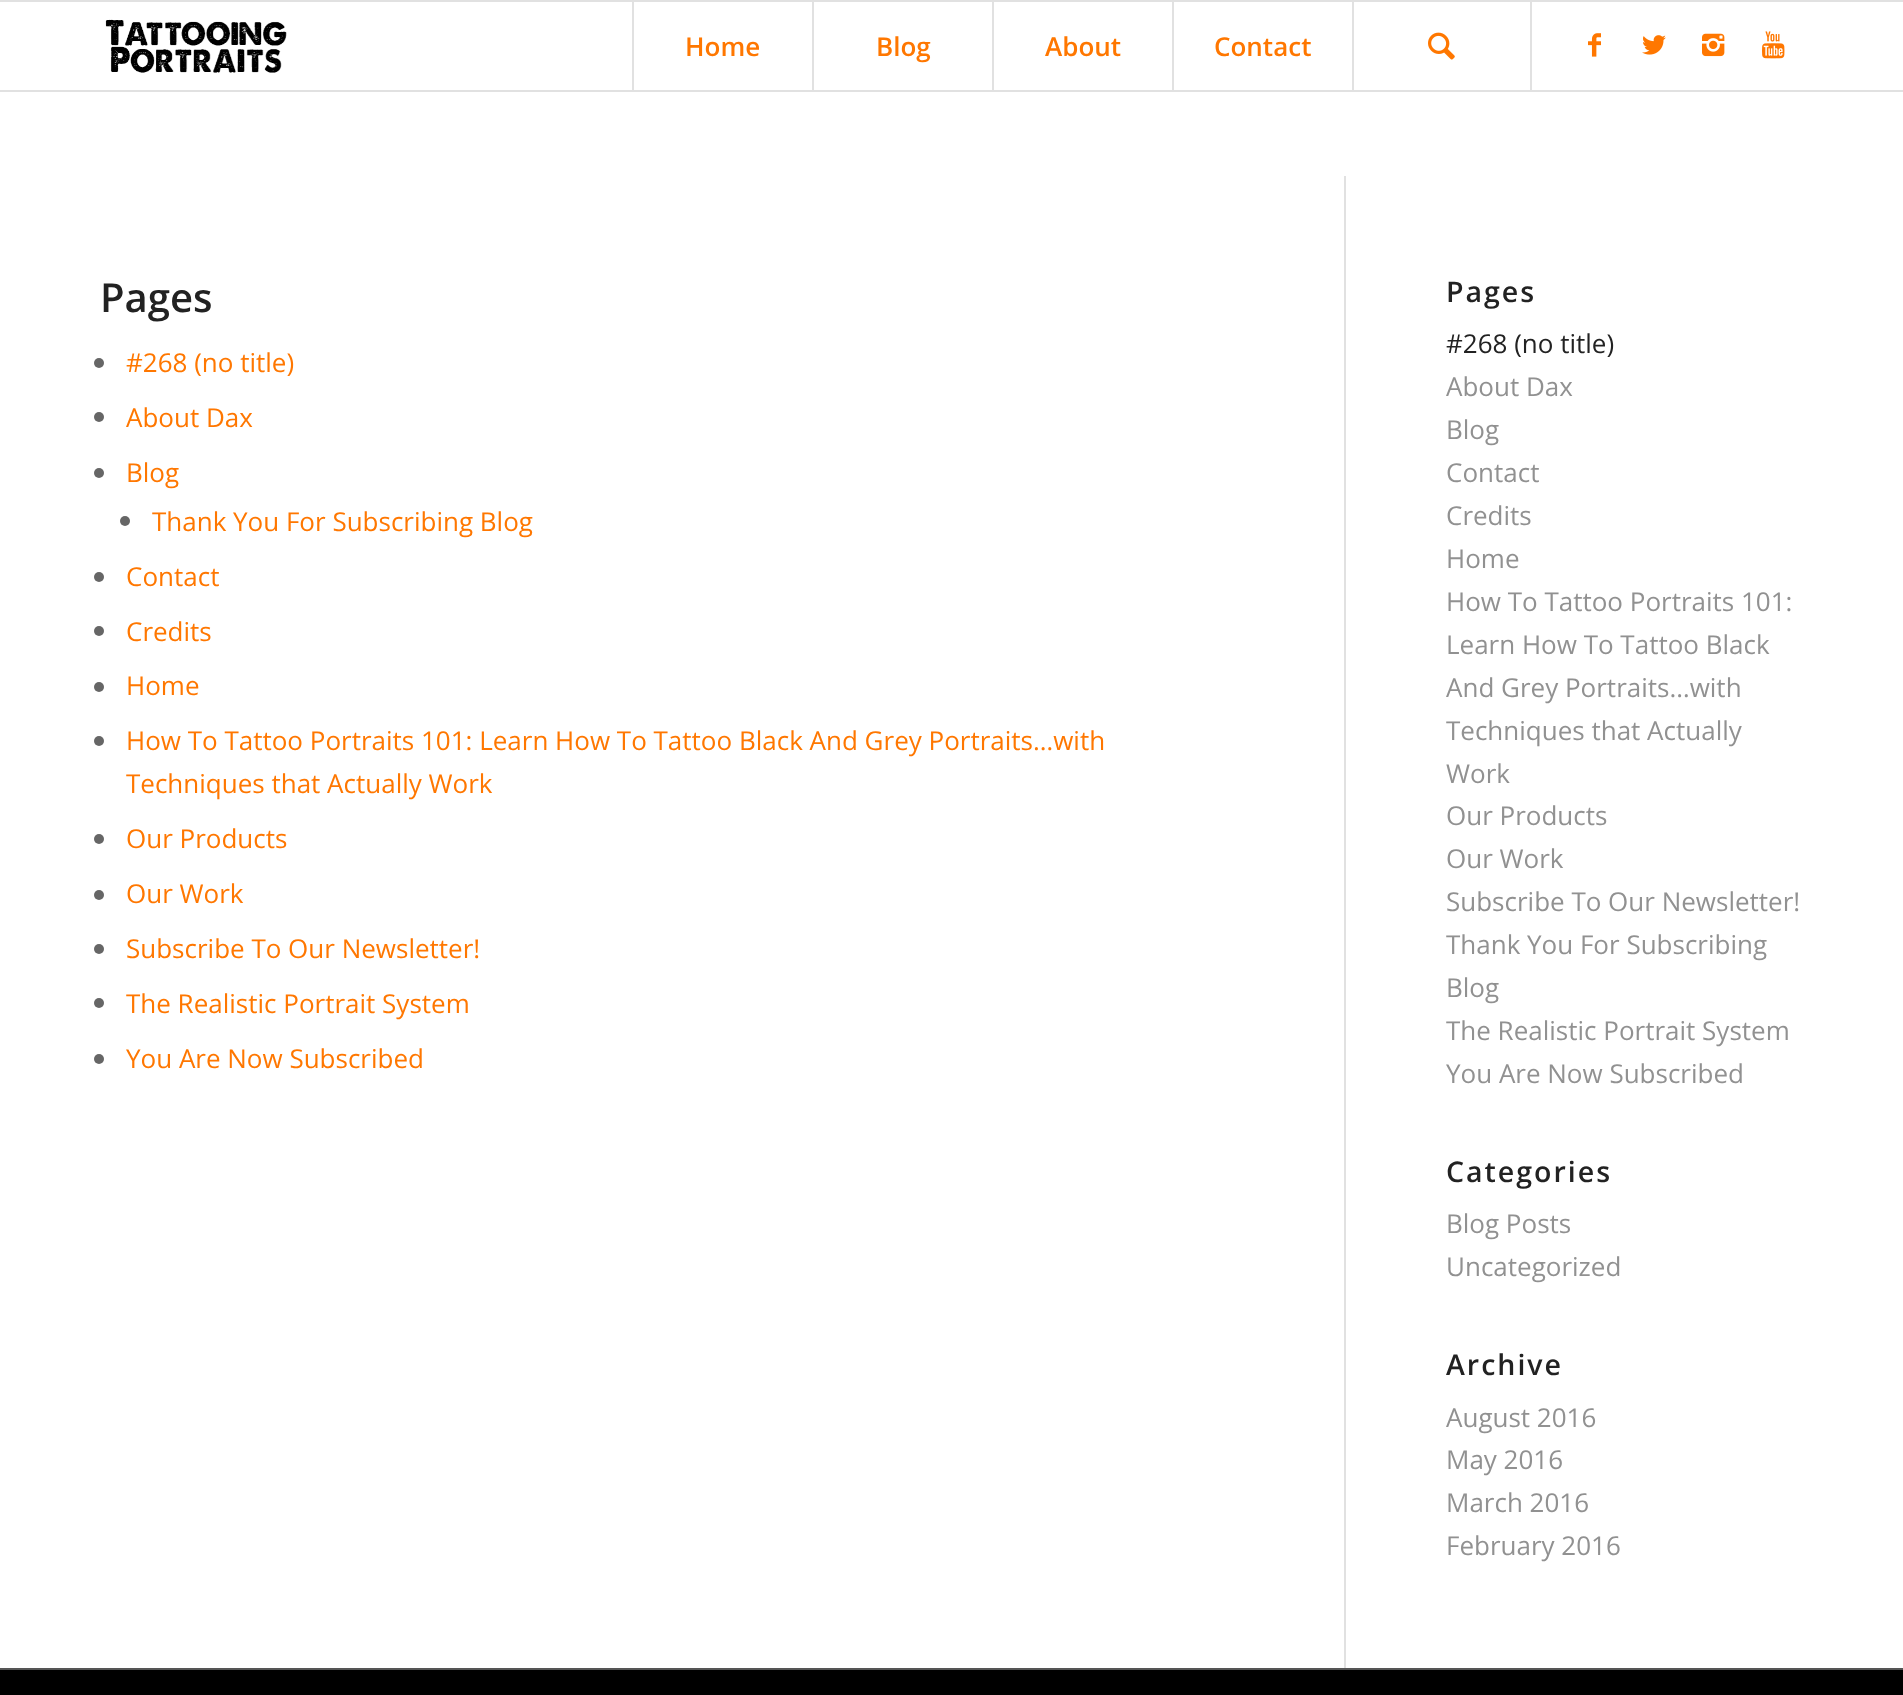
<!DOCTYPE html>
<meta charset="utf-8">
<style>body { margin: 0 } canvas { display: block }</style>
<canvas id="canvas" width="1903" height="1695"></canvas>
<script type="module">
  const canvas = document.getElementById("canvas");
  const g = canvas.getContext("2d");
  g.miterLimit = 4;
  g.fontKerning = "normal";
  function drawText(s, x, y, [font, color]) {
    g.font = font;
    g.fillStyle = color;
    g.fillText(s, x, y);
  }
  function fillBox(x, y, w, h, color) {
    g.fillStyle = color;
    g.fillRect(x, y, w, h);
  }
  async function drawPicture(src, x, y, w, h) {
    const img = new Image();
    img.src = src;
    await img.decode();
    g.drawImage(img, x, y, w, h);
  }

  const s1 = ["600 26px Open Sans", "#FF7700"];
  const s2 = ["600 40px Open Sans", "#222222"];
  const s3 = ["26px Open Sans", "#FF7700"];
  const s4 = ["600 28.5px Open Sans", "#222222"];
  const s5 = ["26px Open Sans", "#222222"];
  const s6 = ["26px Open Sans", "#919191"];

  fillBox(0, 0, 1903, 1695, "#FFFFFF");
  fillBox(0, 0, 1903, 2, "#E1E1E1");
  fillBox(0, 90, 1903, 2, "#E1E1E1");
  await drawPicture("pic1.png", 105, 19, 182, 54);
  fillBox(632, 2, 2, 88, "#E1E1E1");
  drawText("Home", 685, 56, s1);
  fillBox(812, 2, 2, 88, "#E1E1E1");
  drawText("Blog", 876, 56, s1);
  fillBox(992, 2, 2, 88, "#E1E1E1");
  drawText("About", 1045, 56, s1);
  fillBox(1172, 2, 2, 88, "#E1E1E1");
  drawText("Contact", 1214, 56, s1);
  fillBox(1530, 2, 2, 88, "#E1E1E1");
  fillBox(1352, 2, 2, 88, "#E1E1E1");
  await drawPicture("pic2.png", 1428, 32, 27, 28);
  await drawPicture("pic3.png", 1588, 33, 13, 24);
  await drawPicture("pic4.png", 1642, 35, 24, 20);
  await drawPicture("pic5.png", 1702, 33, 23, 24);
  await drawPicture("pic6.png", 1762, 31, 23, 28);
  drawText("Pages", 100, 312, s2);
  g.fillStyle = "#666666";
  g.beginPath();
  g.arc(99, 363, 5, 0, Math.PI * 2);
  g.fill();
  drawText("#268 (no title)", 126, 372, s3);
  g.fillStyle = "#666666";
  g.beginPath();
  g.arc(99, 417, 5, 0, Math.PI * 2);
  g.fill();
  drawText("About Dax", 126, 427, s3);
  g.fillStyle = "#666666";
  g.beginPath();
  g.arc(99, 473, 5, 0, Math.PI * 2);
  g.fill();
  drawText("Blog", 126, 482, s3);
  g.fillStyle = "#666666";
  g.beginPath();
  g.arc(125, 521, 5, 0, Math.PI * 2);
  g.fill();
  drawText("Thank You For Subscribing Blog", 152, 531, s3);
  g.fillStyle = "#666666";
  g.beginPath();
  g.arc(99, 577, 5, 0, Math.PI * 2);
  g.fill();
  drawText("Contact", 126, 586, s3);
  g.fillStyle = "#666666";
  g.beginPath();
  g.arc(99, 631, 5, 0, Math.PI * 2);
  g.fill();
  drawText("Credits", 126, 641, s3);
  g.fillStyle = "#666666";
  g.beginPath();
  g.arc(99, 687, 5, 0, Math.PI * 2);
  g.fill();
  drawText("Home", 126, 695, s3);
  g.fillStyle = "#666666";
  g.beginPath();
  g.arc(99, 741, 5, 0, Math.PI * 2);
  g.fill();
  drawText("How To Tattoo Portraits 101: Learn How To Tattoo Black And Grey Portraits…with", 126, 750, s3);
  drawText("Techniques that Actually Work", 126, 793, s3);
  g.fillStyle = "#666666";
  g.beginPath();
  g.arc(99, 839, 5, 0, Math.PI * 2);
  g.fill();
  drawText("Our Products", 126, 848, s3);
  g.fillStyle = "#666666";
  g.beginPath();
  g.arc(99, 895, 5, 0, Math.PI * 2);
  g.fill();
  drawText("Our Work", 126, 903, s3);
  g.fillStyle = "#666666";
  g.beginPath();
  g.arc(99, 949, 5, 0, Math.PI * 2);
  g.fill();
  drawText("Subscribe To Our Newsletter!", 126, 958, s3);
  g.fillStyle = "#666666";
  g.beginPath();
  g.arc(99, 1003, 5, 0, Math.PI * 2);
  g.fill();
  drawText("The Realistic Portrait System", 126, 1013, s3);
  g.fillStyle = "#666666";
  g.beginPath();
  g.arc(99, 1059, 5, 0, Math.PI * 2);
  g.fill();
  drawText("You Are Now Subscribed", 126, 1068, s3);
  fillBox(1344, 176, 2, 1492, "#E1E1E1");
  g.letterSpacing = "2px";
  drawText("Pages", 1446, 302, s4);
  g.letterSpacing = "0px";
  drawText("#268 (no title)", 1446, 353, s5);
  drawText("About Dax", 1446, 396, s6);
  drawText("Blog", 1446, 439, s6);
  drawText("Contact", 1446, 482, s6);
  drawText("Credits", 1446, 525, s6);
  drawText("Home", 1446, 568, s6);
  drawText("How To Tattoo Portraits 101:", 1446, 611, s6);
  drawText("Learn How To Tattoo Black", 1446, 654, s6);
  drawText("And Grey Portraits…with", 1446, 697, s6);
  drawText("Techniques that Actually", 1446, 740, s6);
  drawText("Work", 1446, 783, s6);
  drawText("Our Products", 1446, 825, s6);
  drawText("Our Work", 1446, 868, s6);
  drawText("Subscribe To Our Newsletter!", 1446, 911, s6);
  drawText("Thank You For Subscribing", 1446, 954, s6);
  drawText("Blog", 1446, 997, s6);
  drawText("The Realistic Portrait System", 1446, 1040, s6);
  drawText("You Are Now Subscribed", 1446, 1083, s6);
  g.letterSpacing = "2px";
  drawText("Categories", 1446, 1182, s4);
  g.letterSpacing = "0px";
  drawText("Blog Posts", 1446, 1233, s6);
  drawText("Uncategorized", 1446, 1276, s6);
  g.letterSpacing = "2px";
  drawText("Archive", 1446, 1375, s4);
  g.letterSpacing = "0px";
  drawText("August 2016", 1446, 1427, s6);
  drawText("May 2016", 1446, 1469, s6);
  drawText("March 2016", 1446, 1512, s6);
  drawText("February 2016", 1446, 1555, s6);
  fillBox(0, 1670, 1903, 25, "#000000");
  fillBox(0, 1668, 1903, 2, "#555555");
</script>
